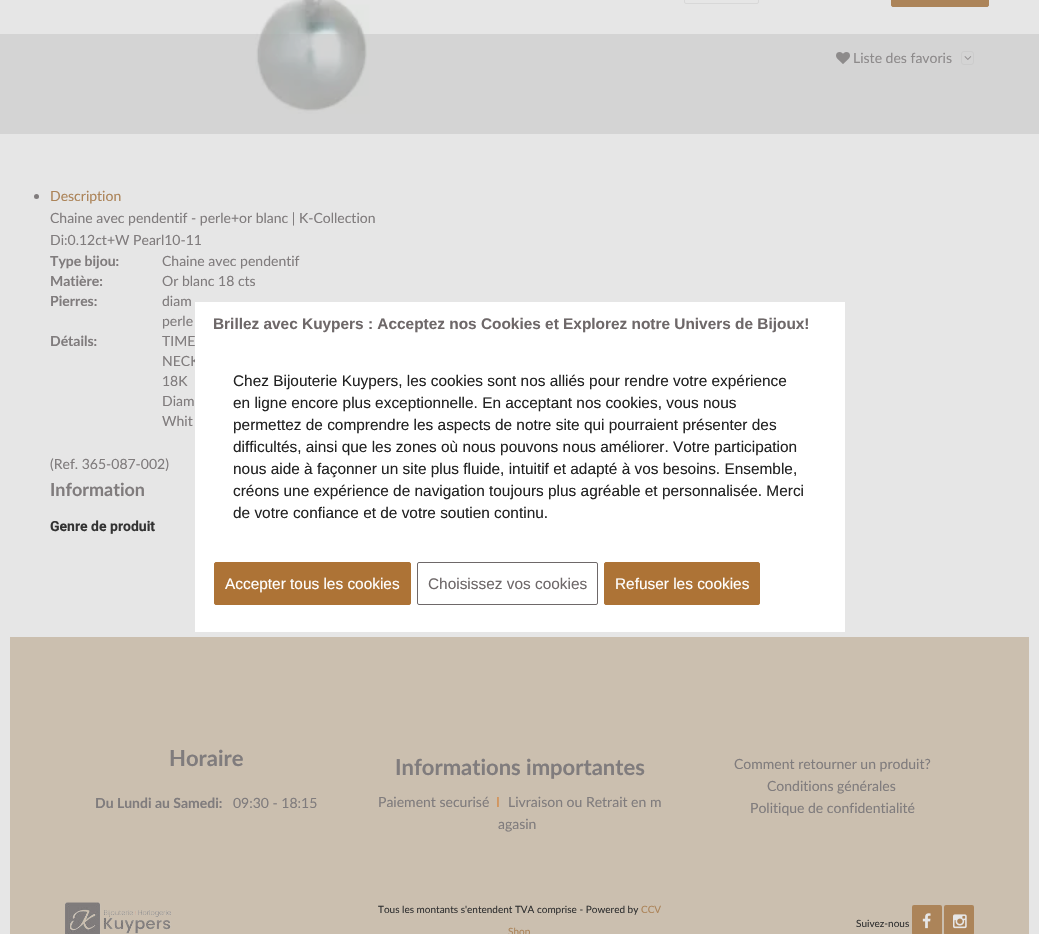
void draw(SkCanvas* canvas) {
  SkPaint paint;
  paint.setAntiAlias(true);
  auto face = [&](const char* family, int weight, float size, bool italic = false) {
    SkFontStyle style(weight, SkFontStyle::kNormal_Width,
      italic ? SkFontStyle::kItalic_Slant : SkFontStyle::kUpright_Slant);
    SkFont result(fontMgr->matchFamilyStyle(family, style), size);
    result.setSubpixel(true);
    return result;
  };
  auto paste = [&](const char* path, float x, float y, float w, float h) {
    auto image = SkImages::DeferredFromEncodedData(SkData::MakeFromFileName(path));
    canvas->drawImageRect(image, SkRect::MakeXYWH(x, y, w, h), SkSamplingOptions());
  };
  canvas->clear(0xffe6e6e6);
  paste("img/1.png", 255, 0, 115, 114);
  paint.setStroke(true);
  paint.setStrokeWidth(1);
  paint.setColor(0xffd8d8d8);
  canvas->drawRoundRect(SkRect::MakeXYWH(684.5f, -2.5f, 74, 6), 1.5f, 1.5f, paint);
  paint.setStroke(false);
  paint.setColor(0xffac8459);
  canvas->drawRoundRect(SkRect::MakeXYWH(891.5f, -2.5f, 97, 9), 1.5f, 1.5f, paint);
  paint.setStroke(true);
  canvas->drawRoundRect(SkRect::MakeXYWH(891.5f, -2.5f, 97, 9), 1.5f, 1.5f, paint);
  paste("img/2.png", 836, 52, 14, 12);
  paint.setColor(0xffdadada);
  canvas->drawRoundRect(SkRect::MakeXYWH(961.5f, 51.5f, 12, 13), 2.5f, 2.5f, paint);
  paste("img/3.png", 964, 56, 8, 4);
  paint.setStroke(false);
  paint.setColor(0xff807c7d);
  canvas->drawCircle(36.5f, 196.5f, 2.5f, paint);
  paint.setColor(0xffcbbfaf);
  canvas->drawRect(SkRect::MakeXYWH(10, 637, 1019, 297), paint);
  paste("img/4.png", 65, 902, 106, 32);
  paint.setColor(0xffac8459);
  canvas->drawRoundRect(SkRect::MakeXYWH(912, 905, 30, 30), 2, 2, paint);
  paste("img/5.png", 922, 913, 9, 16);
  canvas->drawRoundRect(SkRect::MakeXYWH(944, 905, 30, 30), 2, 2, paint);
  paste("img/6.png", 953, 914, 14, 15);
  auto f0 = face("Lato", 400, 14);
  paint.setColor(0xff807c7d);
  canvas->drawString("Liste des favoris", 853, 63, f0, paint);
  paint.setColor(0x4dababab);
  canvas->drawRect(SkRect::MakeXYWH(0, 34, 1039, 100), paint);
  paint.setColor(0xffac8459);
  canvas->drawString("Description", 50, 201, f0, paint);
  paint.setColor(0xff807c7d);
  canvas->drawString("Chaine avec pendentif - perle+or blanc | K-Collection", 50, 223, f0, paint);
  canvas->drawString("Di:0.12ct+W Pearl10-11", 50, 245, f0, paint);
  auto f1 = face("Lato", 700, 14);
  canvas->drawString("Type bijou:", 50, 266, f1, paint);
  canvas->drawString("Chaine avec pendentif", 162, 266, f0, paint);
  canvas->drawString("Matière:", 50, 286, f1, paint);
  canvas->drawString("Or blanc 18 cts", 162, 286, f0, paint);
  canvas->drawString("Pierres:", 50, 306, f1, paint);
  canvas->drawString("diam", 162, 306, f0, paint);
  canvas->drawString("perle", 162, 326, f0, paint);
  canvas->drawString("Détails:", 50, 346, f1, paint);
  {
    const struct { const char* s; float x, y; } items[] = {
      {"TIME", 162, 346},
      {"NECK", 162, 366},
      {"18K", 162, 386},
      {"Diam", 162, 406},
      {"Whit", 162, 426},
      {"(Ref. 365-087-002)", 50, 469},
    };
    for (auto [s, x, y] : items) {
      canvas->drawString(s, x, y, f0, paint);
    }
  }
  auto f2 = face("Lato", 700, 18);
  canvas->drawString("Information", 50, 496, f2, paint);
  auto f3 = face("Roboto", 700, 14);
  paint.setColor(0xff333333);
  canvas->drawString("Genre de produit", 50, 531, f3, paint);
  paint.setColor(0xffffffff);
  canvas->drawRect(SkRect::MakeXYWH(195, 302, 650, 330), paint);
  auto f4 = face("Liberation Sans", 700, 15.4f);
  paint.setColor(0xff6e6869);
  canvas->drawString("Brillez avec Kuypers : Acceptez nos Cookies et Explorez notre Univers de Bijoux!", 213, 329, f4, paint);
  auto f5 = face("Liberation Sans", 400, 15.4f);
  paint.setColor(0xff222222);
  {
    const struct { const char* s; float x, y; } items[] = {
      {"Chez Bijouterie Kuypers, les cookies sont nos alliés pour rendre votre expérience", 233, 386},
      {"en ligne encore plus exceptionnelle. En acceptant nos cookies, vous nous", 233, 408},
      {"permettez de comprendre les aspects de notre site qui pourraient présenter des", 233, 430},
      {"difficultés, ainsi que les zones où nous pouvons nous améliorer. Votre participation", 233, 452},
      {"nous aide à façonner un site plus fluide, intuitif et adapté à vos besoins. Ensemble,", 233, 474},
      {"créons une expérience de navigation toujours plus agréable et personnalisée. Merci", 233, 496},
      {"de votre confiance et de votre soutien continu.", 233, 518},
    };
    for (auto [s, x, y] : items) {
      canvas->drawString(s, x, y, f5, paint);
    }
  }
  paint.setColor(0xffad7336);
  canvas->drawRoundRect(SkRect::MakeXYWH(214.5f, 562.5f, 196, 42), 1.5f, 1.5f, paint);
  paint.setStroke(true);
  canvas->drawRoundRect(SkRect::MakeXYWH(214.5f, 562.5f, 196, 42), 1.5f, 1.5f, paint);
  paint.setStroke(false);
  paint.setColor(0xffffffff);
  canvas->drawString("Accepter tous les cookies", 225, 589, f5, paint);
  paint.setStroke(true);
  paint.setColor(0xff6e6869);
  canvas->drawRoundRect(SkRect::MakeXYWH(417.5f, 562.5f, 180, 42), 1.5f, 1.5f, paint);
  paint.setStroke(false);
  canvas->drawString("Choisissez vos cookies", 428, 589, f5, paint);
  paint.setColor(0xffad7336);
  canvas->drawRoundRect(SkRect::MakeXYWH(604.5f, 562.5f, 155, 42), 1.5f, 1.5f, paint);
  paint.setStroke(true);
  canvas->drawRoundRect(SkRect::MakeXYWH(604.5f, 562.5f, 155, 42), 1.5f, 1.5f, paint);
  paint.setStroke(false);
  paint.setColor(0xffffffff);
  canvas->drawString("Refuser les cookies", 615, 589, f5, paint);
  auto f6 = face("Lato", 700, 22);
  paint.setColor(0xff807c7d);
  canvas->drawString("Horaire", 169, 766, f6, paint);
  canvas->drawString("Du Lundi au Samedi:", 95, 808, f1, paint);
  canvas->drawString("09:30 - 18:15", 233, 808, f0, paint);
  canvas->drawString("Informations importantes", 395, 775, f6, paint);
  canvas->drawString("Paiement securisé", 378, 807, f0, paint);
  paint.setColor(0xffd48b4b);
  canvas->drawString("I", 496, 807, f0, paint);
  paint.setColor(0xff807c7d);
  {
    const struct { const char* s; float x, y; } items[] = {
      {"Livraison ou Retrait en m", 508, 807},
      {"agasin", 498, 829},
      {"Comment retourner un produit?", 734, 769},
      {"Conditions générales", 767, 791},
      {"Politique de confidentialité", 750, 813},
    };
    for (auto [s, x, y] : items) {
      canvas->drawString(s, x, y, f0, paint);
    }
  }
  auto f7 = face("Lato", 400, 10);
  paint.setColor(0xff333333);
  canvas->drawString("Tous les montants s'entendent TVA comprise - Powered by", 378, 913, f7, paint);
  paint.setColor(0xffac8459);
  canvas->drawString("CCV", 641, 913, f7, paint);
  canvas->drawString("Shop", 508, 935, f7, paint);
  paint.setColor(0xff333333);
  canvas->drawString("Suivez-nous", 856, 927, f7, paint);
}
